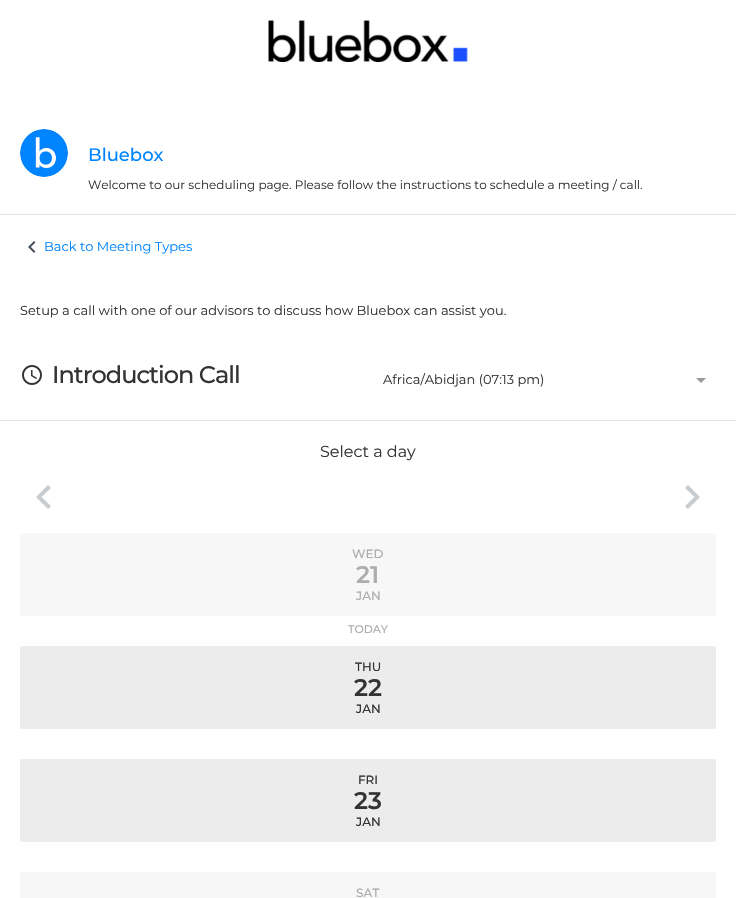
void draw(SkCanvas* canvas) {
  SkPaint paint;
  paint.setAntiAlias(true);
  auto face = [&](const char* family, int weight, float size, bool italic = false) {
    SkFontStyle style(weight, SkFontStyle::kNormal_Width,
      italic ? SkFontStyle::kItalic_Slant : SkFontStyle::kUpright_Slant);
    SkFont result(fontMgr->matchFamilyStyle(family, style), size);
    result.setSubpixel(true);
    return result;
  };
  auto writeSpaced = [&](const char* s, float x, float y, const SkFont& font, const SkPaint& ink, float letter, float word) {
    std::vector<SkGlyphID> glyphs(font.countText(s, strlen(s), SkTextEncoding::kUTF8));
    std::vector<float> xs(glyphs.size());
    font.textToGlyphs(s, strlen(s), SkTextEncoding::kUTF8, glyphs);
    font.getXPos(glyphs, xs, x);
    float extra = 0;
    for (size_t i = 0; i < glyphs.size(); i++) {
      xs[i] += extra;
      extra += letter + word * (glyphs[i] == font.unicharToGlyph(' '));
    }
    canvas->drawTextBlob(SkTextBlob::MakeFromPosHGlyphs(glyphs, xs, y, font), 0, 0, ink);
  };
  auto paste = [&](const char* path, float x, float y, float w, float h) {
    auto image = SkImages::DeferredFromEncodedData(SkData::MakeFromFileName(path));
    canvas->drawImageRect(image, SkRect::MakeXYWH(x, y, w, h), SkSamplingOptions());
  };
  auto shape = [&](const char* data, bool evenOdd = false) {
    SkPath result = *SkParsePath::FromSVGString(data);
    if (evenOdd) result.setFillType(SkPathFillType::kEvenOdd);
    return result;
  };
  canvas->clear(0xffffffff);
  paint.setColor(0xffdee3e9);
  canvas->drawRect(SkRect::MakeXYWH(0, 214, 736, 1), paint);
  paste("img/1.png", 268, 20, 200, 42);
  paste("img/2.png", 20, 129, 48, 48);
  paste("img/3.png", 28, 241, 8, 12);
  paste("img/4.png", 22, 365, 20, 20);
  paint.setColor(0xff999999);
  canvas->drawPath(shape("M696 378H706L701 383Z"), paint);
  paint.setColor(0xffdee3e9);
  canvas->drawRect(SkRect::MakeXYWH(0, 420, 736, 1), paint);
  paint.setColor(0xffc7ccd2);
  canvas->drawPath(shape("M51 506L48 509L36 497L48 485L51 488L41.5 497Z"), paint);
  canvas->drawPath(shape("M685 506L694.5 497L685 488L688 485L700 497L688 509Z"), paint);
  paint.setColor(0xfff7f7f7);
  canvas->drawRoundRect(SkRect::MakeXYWH(20, 533, 696, 83), 2, 2, paint);
  paint.setColor(0xffececec);
  canvas->drawRoundRect(SkRect::MakeXYWH(20, 646, 696, 83), 2, 2, paint);
  canvas->drawRoundRect(SkRect::MakeXYWH(20, 759, 696, 83), 2, 2, paint);
  paint.setColor(0xfff7f7f7);
  canvas->drawRoundRect(SkRect::MakeXYWH(20, 872, 696, 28), 2, 2, paint);
  auto f0 = face("Montserrat", 500, 18);
  paint.setColor(0xff0085ff);
  canvas->drawString("Bluebox", 88, 161, f0, paint);
  auto f1 = face("Montserrat", 400, 12);
  paint.setColor(0xff333333);
  canvas->drawString("Welcome to our scheduling page. Please follow the instructions to schedule a meeting / call.", 88, 189, f1, paint);
  auto f2 = face("Montserrat", 400, 13);
  paint.setColor(0xff0085ff);
  canvas->drawString("Back to Meeting Types", 44, 251, f2, paint);
  paint.setColor(0xff333333);
  canvas->drawString("Setup a call with one of our advisors to discuss how Bluebox can assist you.", 20, 315, f2, paint);
  auto f3 = face("Montserrat", 500, 24);
  writeSpaced("Introduction Call", 52, 383, f3, paint, -1, 0);
  canvas->drawString("Africa/Abidjan (07:13 pm)", 383, 384, f2, paint);
  auto f4 = face("Montserrat", 400, 16);
  canvas->drawString("Select a day", 320, 457, f4, paint);
  auto f5 = face("Montserrat", 500, 12);
  paint.setColor(0xffadadad);
  canvas->drawString("WED", 352, 558, f5, paint);
  auto f6 = face("Montserrat", 600, 24);
  canvas->drawString("21", 356, 583, f6, paint);
  canvas->drawString("JAN", 356, 600, f5, paint);
  auto f7 = face("Montserrat", 500, 11);
  canvas->drawString("TODAY", 348, 633, f7, paint);
  paint.setColor(0xff333333);
  canvas->drawString("THU", 355, 671, f5, paint);
  canvas->drawString("22", 354, 696, f6, paint);
  canvas->drawString("JAN", 356, 713, f5, paint);
  canvas->drawString("FRI", 358, 784, f5, paint);
  canvas->drawString("23", 354, 809, f6, paint);
  canvas->drawString("JAN", 356, 826, f5, paint);
  paint.setColor(0xffadadad);
  canvas->drawString("SAT", 356, 897, f5, paint);
}
